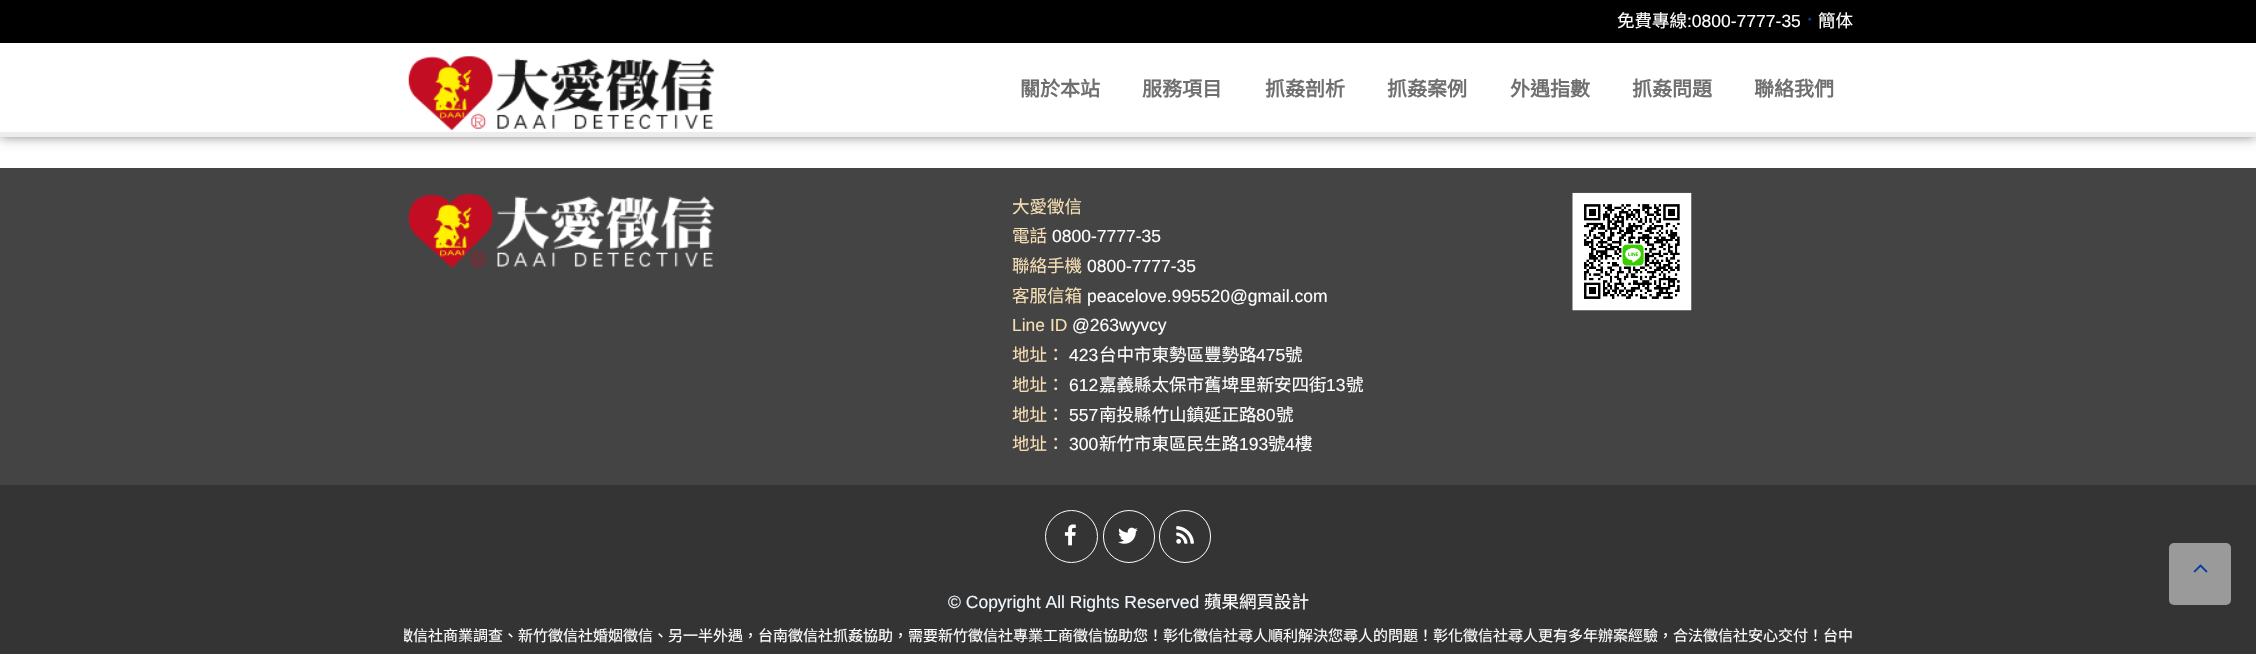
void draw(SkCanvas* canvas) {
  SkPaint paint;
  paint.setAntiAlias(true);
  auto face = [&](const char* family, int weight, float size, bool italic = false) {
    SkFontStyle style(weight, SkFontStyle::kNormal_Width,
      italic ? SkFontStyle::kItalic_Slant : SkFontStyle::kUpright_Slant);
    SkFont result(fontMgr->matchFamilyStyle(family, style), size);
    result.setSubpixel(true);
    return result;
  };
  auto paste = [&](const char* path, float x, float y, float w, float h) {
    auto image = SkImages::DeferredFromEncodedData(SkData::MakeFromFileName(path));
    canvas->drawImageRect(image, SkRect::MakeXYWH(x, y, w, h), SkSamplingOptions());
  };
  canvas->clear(0xffffffff);
  paint.setColor(0x8a000000);
  paint.setMaskFilter(SkMaskFilter::MakeBlur(kNormal_SkBlurStyle, 6));
  canvas->drawRect(SkRect::MakeXYWH(0, 0, 2256, 136), paint);
  paint.setMaskFilter(nullptr);
  {
    const struct { float x, y, w, h; SkColor color; } items[] = {
      {0, 43, 2256, 89, 0xffffffff},
      {0, 132, 2256, 5, 0xffececec},
      {0, 0, 2256, 43, 0xff000000},
    };
    for (auto [x, y, w, h, color] : items) {
      paint.setColor(color);
      canvas->drawRect(SkRect::MakeXYWH(x, y, w, h), paint);
    }
  }
  paste("img/1.png", 408, 56, 307, 75);
  paint.setColor(0xff444444);
  canvas->drawRect(SkRect::MakeXYWH(0, 168, 2256, 317), paint);
  paste("img/2.png", 408, 193, 307, 75);
  paste("img/3.png", 1572, 192, 120, 119);
  paint.setColor(0xff343434);
  canvas->drawRect(SkRect::MakeXYWH(0, 485, 2256, 169), paint);
  paint.setStroke(true);
  paint.setStrokeWidth(1);
  paint.setColor(0xffffffff);
  canvas->drawCircle(1071.5f, 536.5f, 26, paint);
  paste("img/4.png", 1064, 524, 12, 22);
  canvas->drawRoundRect(SkRect::MakeXYWH(1103.5f, 510.5f, 51, 52), 25.5f, 25.5f, paint);
  paste("img/5.png", 1118, 527, 20, 17);
  canvas->drawRoundRect(SkRect::MakeXYWH(1159.5f, 510.5f, 51, 52), 25.5f, 25.5f, paint);
  paste("img/6.png", 1176, 526, 18, 18);
  paint.setStroke(false);
  paint.setColor(0xff9a9a9a);
  canvas->drawRoundRect(SkRect::MakeXYWH(2169, 543, 62, 62), 5, 5, paint);
  paste("img/7.png", 2193, 564, 15, 9);
  auto f0 = face("Noto Sans CJK TC", 400, 17.5f);
  paint.setColor(0xffffffff);
  canvas->drawString("免費專線", 1617, 27, f0, paint);
  auto f1 = face("Liberation Sans", 400, 17.5f);
  canvas->drawString(":0800-7777-35", 1687, 27, f1, paint);
  paint.setColor(0xff093d9e);
  canvas->drawString("．", 1801, 26, f0, paint);
  paint.setColor(0xffffffff);
  canvas->drawString("簡体", 1818, 27, f0, paint);
  auto f2 = face("Noto Sans CJK TC", 700, 20);
  paint.setColor(0xff6f6f6f);
  {
    const struct { const char* s; float x, y; } items[] = {
      {"關於本站", 1020, 96},
      {"服務項目", 1142, 96},
      {"抓姦剖析", 1265, 96},
      {"抓姦案例", 1387, 96},
      {"外遇指數", 1510, 96},
      {"抓姦問題", 1632, 96},
      {"聯絡我們", 1754, 96},
    };
    for (auto [s, x, y] : items) {
      canvas->drawString(s, x, y, f2, paint);
    }
  }
  paint.setColor(0xfff5deb3);
  canvas->drawString("大愛徵信", 1012, 213, f0, paint);
  canvas->drawString("電話", 1012, 242, f0, paint);
  paint.setColor(0xffffffff);
  canvas->drawString("0800-7777-35", 1052, 242, f1, paint);
  paint.setColor(0xfff5deb3);
  canvas->drawString("聯絡手機", 1012, 272, f0, paint);
  paint.setColor(0xffffffff);
  canvas->drawString("0800-7777-35", 1087, 272, f1, paint);
  paint.setColor(0xfff5deb3);
  canvas->drawString("客服信箱", 1012, 302, f0, paint);
  paint.setColor(0xffffffff);
  canvas->drawString("peacelove.995520@gmail.com", 1087, 302, f1, paint);
  paint.setColor(0xfff5deb3);
  canvas->drawString("Line ID", 1012, 331, f1, paint);
  paint.setColor(0xffffffff);
  canvas->drawString("@263wyvcy", 1072, 331, f1, paint);
  paint.setColor(0xfff5deb3);
  canvas->drawString("地址：", 1012, 361, f0, paint);
  paint.setColor(0xffffffff);
  canvas->drawString("423", 1069, 361, f1, paint);
  canvas->drawString("台中市東勢區豐勢路", 1099, 361, f0, paint);
  canvas->drawString("475", 1256, 361, f1, paint);
  canvas->drawString("號", 1285, 361, f0, paint);
  paint.setColor(0xfff5deb3);
  canvas->drawString("地址：", 1012, 391, f0, paint);
  paint.setColor(0xffffffff);
  canvas->drawString("612", 1069, 391, f1, paint);
  canvas->drawString("嘉義縣太保市舊埤里新安四街", 1099, 391, f0, paint);
  canvas->drawString("13", 1326, 391, f1, paint);
  canvas->drawString("號", 1346, 391, f0, paint);
  paint.setColor(0xfff5deb3);
  canvas->drawString("地址：", 1012, 421, f0, paint);
  paint.setColor(0xffffffff);
  canvas->drawString("557", 1069, 421, f1, paint);
  canvas->drawString("南投縣竹山鎮延正路", 1099, 421, f0, paint);
  canvas->drawString("80", 1256, 421, f1, paint);
  canvas->drawString("號", 1276, 421, f0, paint);
  paint.setColor(0xfff5deb3);
  canvas->drawString("地址：", 1012, 450, f0, paint);
  paint.setColor(0xffffffff);
  canvas->drawString("300", 1069, 450, f1, paint);
  canvas->drawString("新竹市東區民生路", 1099, 450, f0, paint);
  canvas->drawString("193", 1239, 450, f1, paint);
  canvas->drawString("號", 1268, 450, f0, paint);
  canvas->drawString("4", 1285, 450, f1, paint);
  canvas->drawString("樓", 1295, 450, f0, paint);
  paint.setColor(0xfff0f8ff);
  canvas->drawString("© Copyright All Rights Reserved", 948, 608, f1, paint);
  paint.setColor(0xffffffff);
  canvas->drawString("蘋果網頁設計", 1204, 608, f0, paint);
  canvas->save();
  canvas->clipRect(SkRect::MakeXYWH(404, 624, 1450, 25));
  auto f3 = face("Noto Sans CJK TC", 400, 15);
  canvas->drawString("徵信社商業調查、新竹徵信社婚姻徵信、另一半外遇，台南徵信社抓姦協助，需要新竹徵信社專業工商徵信協助您！彰化徵信社尋人順利解決您尋人的問題！彰化徵信社尋人更有多年辦案經驗，合法徵信社安心交付！台中", 398, 641, f3, paint);
  canvas->restore();
}
